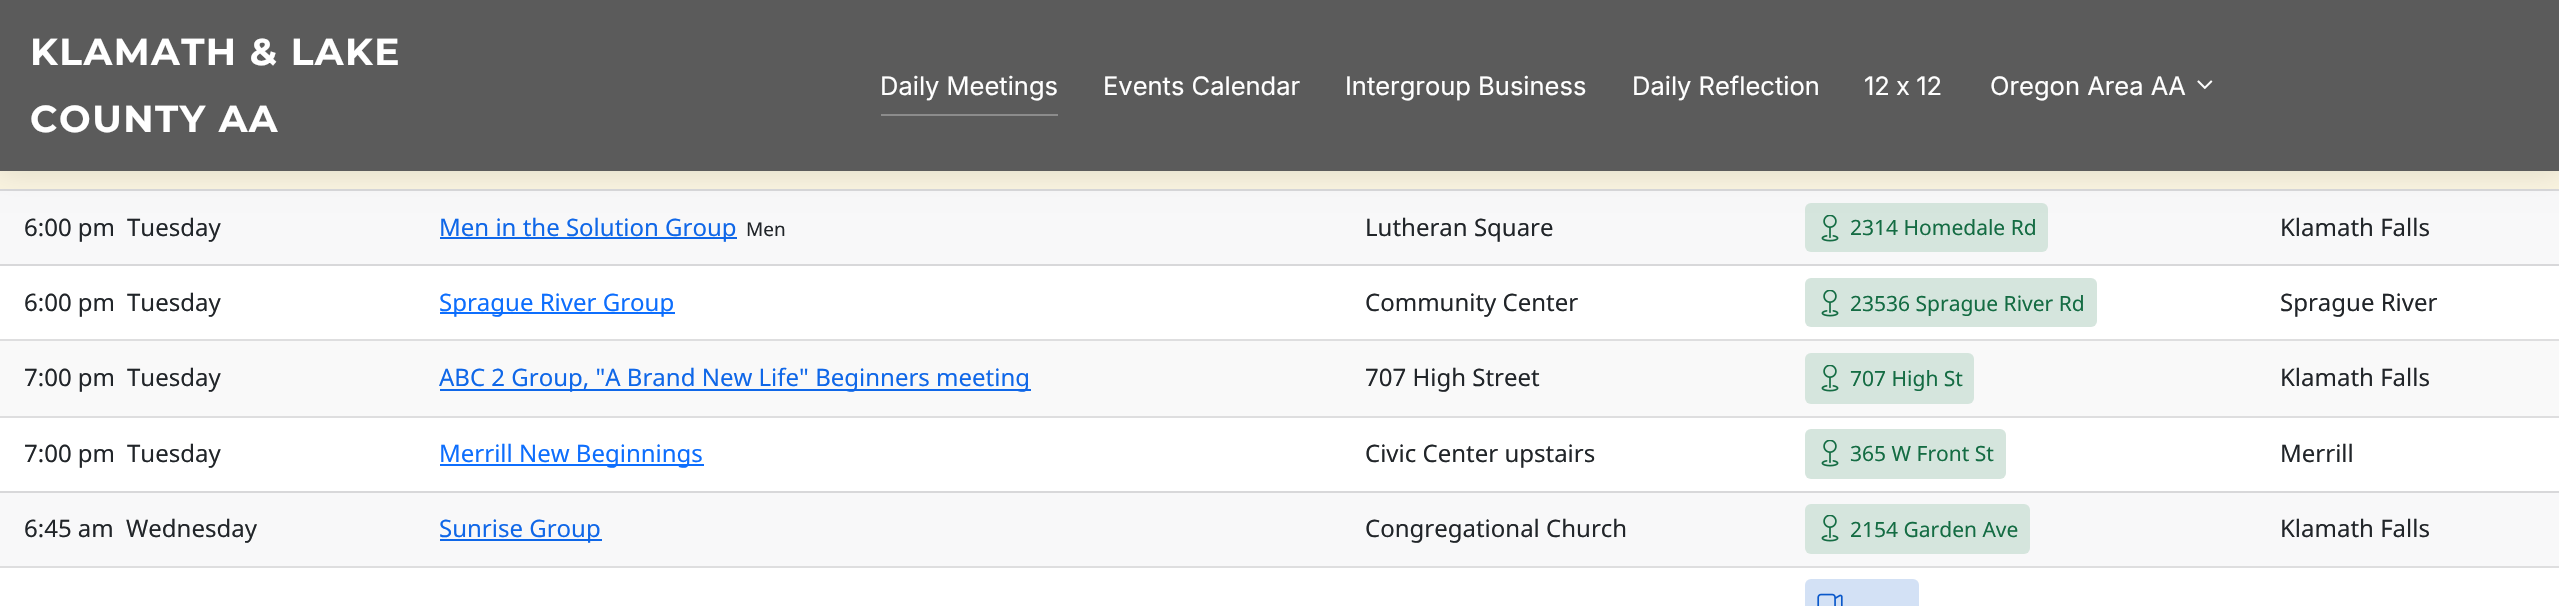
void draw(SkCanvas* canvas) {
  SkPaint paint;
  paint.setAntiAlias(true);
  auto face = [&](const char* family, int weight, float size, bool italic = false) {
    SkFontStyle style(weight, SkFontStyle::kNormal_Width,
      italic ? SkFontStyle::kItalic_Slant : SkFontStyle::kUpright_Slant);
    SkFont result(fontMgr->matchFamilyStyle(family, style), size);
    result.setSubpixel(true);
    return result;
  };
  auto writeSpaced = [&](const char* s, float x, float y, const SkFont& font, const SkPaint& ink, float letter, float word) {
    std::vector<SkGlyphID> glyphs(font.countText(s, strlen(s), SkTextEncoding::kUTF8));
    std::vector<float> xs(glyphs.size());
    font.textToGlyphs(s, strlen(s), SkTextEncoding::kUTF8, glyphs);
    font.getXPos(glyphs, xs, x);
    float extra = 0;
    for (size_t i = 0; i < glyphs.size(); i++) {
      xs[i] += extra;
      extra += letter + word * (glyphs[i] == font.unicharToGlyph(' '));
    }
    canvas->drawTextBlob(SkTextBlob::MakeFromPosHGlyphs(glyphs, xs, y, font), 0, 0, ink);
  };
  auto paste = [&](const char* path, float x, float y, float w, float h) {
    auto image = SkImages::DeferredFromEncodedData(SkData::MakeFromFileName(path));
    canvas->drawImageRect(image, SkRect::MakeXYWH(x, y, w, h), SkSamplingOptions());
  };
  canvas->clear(0xffffffff);
  {
    const struct { float x, y, w, h; SkColor color; } items[] = {
      {0, 493, 2559, 73, 0xfff8f8f9},
      {0, 191, 2559, 73, 0xfff8f8f9},
      {0, 171, 2559, 18, 0xfffaf4e0},
      {0, 189, 2559, 2, 0xffd8d8da},
    };
    for (auto [x, y, w, h, color] : items) {
      paint.setColor(color);
      canvas->drawRect(SkRect::MakeXYWH(x, y, w, h), paint);
    }
  }
  paint.setColor(0xffd5e5dd);
  canvas->drawRoundRect(SkRect::MakeXYWH(1805, 203, 243, 49), 6, 6, paint);
  paint.setColor(0x1a000000);
  paint.setMaskFilter(SkMaskFilter::MakeBlur(kNormal_SkBlurStyle, 13.5f));
  canvas->drawRect(SkRect::MakeXYWH(-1, -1, 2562, 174), paint);
  paint.setMaskFilter(nullptr);
  paint.setColor(0xff5b5b5b);
  canvas->drawRect(SkRect::MakeXYWH(0, 0, 2559, 171), paint);
  paint.setColor(0xff8c8c8c);
  canvas->drawRect(SkRect::MakeXYWH(881, 114, 177, 2), paint);
  paste("img/1.png", 2197, 80, 16, 10);
  paint.setColor(0xff0f67e8);
  canvas->drawRect(SkRect::MakeXYWH(440, 237, 297, 2), paint);
  paste("img/2.png", 1821, 215, 18, 27);
  paint.setColor(0xffd8d8da);
  canvas->drawRect(SkRect::MakeXYWH(0, 264, 2559, 2), paint);
  paint.setColor(0xff0d6efd);
  canvas->drawRect(SkRect::MakeXYWH(440, 312, 235, 2), paint);
  paint.setColor(0xffd5e5dd);
  canvas->drawRoundRect(SkRect::MakeXYWH(1805, 278, 292, 49), 6, 6, paint);
  paste("img/2.png", 1821, 290, 18, 27);
  {
    const struct { float x, y, w, h; SkColor color; } items[] = {
      {0, 339, 2559, 2, 0xffdededf},
      {0, 341, 2559, 75, 0xfff9f9f9},
      {440, 389, 591, 2, 0xff0f67e8},
    };
    for (auto [x, y, w, h, color] : items) {
      paint.setColor(color);
      canvas->drawRect(SkRect::MakeXYWH(x, y, w, h), paint);
    }
  }
  paint.setColor(0xffd5e5dd);
  canvas->drawRoundRect(SkRect::MakeXYWH(1805, 353, 169, 51), 6, 6, paint);
  paste("img/2.png", 1821, 365, 18, 27);
  paint.setColor(0xffdededf);
  canvas->drawRect(SkRect::MakeXYWH(0, 416, 2559, 2), paint);
  paint.setColor(0xff0d6efd);
  canvas->drawRect(SkRect::MakeXYWH(440, 464, 264, 2), paint);
  paint.setColor(0xffd5e5dd);
  canvas->drawRoundRect(SkRect::MakeXYWH(1805, 429, 201, 50), 6, 6, paint);
  paste("img/2.png", 1821, 440, 18, 27);
  paint.setColor(0xffd8d8da);
  canvas->drawRect(SkRect::MakeXYWH(0, 491, 2559, 2), paint);
  paint.setColor(0xff0f67e8);
  canvas->drawRect(SkRect::MakeXYWH(440, 539, 162, 2), paint);
  paint.setColor(0xffd5e5dd);
  canvas->drawRoundRect(SkRect::MakeXYWH(1805, 504, 225, 50), 6, 6, paint);
  paste("img/2.png", 1821, 515, 18, 27);
  paint.setColor(0xffdededf);
  canvas->drawRect(SkRect::MakeXYWH(0, 566, 2559, 2), paint);
  paint.setColor(0xffd3e1f5);
  canvas->drawRoundRect(SkRect::MakeXYWH(1805, 579, 114, 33), 6, 6, paint);
  paste("img/3.png", 1817, 593, 26, 13);
  auto f0 = face("Montserrat", 100, 37.5f);
  paint.setColor(0xffffffff);
  writeSpaced("KLAMATH & LAKE", 30, 65, f0, paint, 1.5f, 0);
  writeSpaced("COUNTY AA", 30, 132, f0, paint, 1.5f, 0);
  auto f1 = face("Inter", 400, 25.5f);
  {
    const struct { const char* s; float x, y; } items[] = {
      {"Daily Meetings", 880, 95},
      {"Events Calendar", 1103, 95},
      {"Intergroup Business", 1345, 95},
      {"Daily Reflection", 1632, 95},
    };
    for (auto [s, x, y] : items) {
      canvas->drawString(s, x, y, f1, paint);
    }
  }
  writeSpaced("12 x 12", 1864, 95, f1, paint, 0, -1);
  canvas->drawString("Oregon Area AA", 1990, 95, f1, paint);
  auto f2 = face("Noto Sans", 400, 24);
  paint.setColor(0xff212529);
  canvas->drawString("6:00 pm", 24, 236, f2, paint);
  canvas->drawString("Tuesday", 127, 236, f2, paint);
  paint.setColor(0xff0f67e8);
  canvas->drawString("Men in the Solution Group", 439, 236, f2, paint);
  auto f3 = face("Noto Sans", 400, 19);
  paint.setColor(0xff212529);
  canvas->drawString("Men", 746, 236, f3, paint);
  canvas->drawString("Lutheran Square", 1365, 236, f2, paint);
  auto f4 = face("Noto Sans", 400, 21);
  paint.setColor(0xff146c43);
  canvas->drawString("2314 Homedale Rd", 1850, 235, f4, paint);
  paint.setColor(0xff212529);
  {
    const struct { const char* s; float x, y; } items[] = {
      {"Klamath Falls", 2280, 236},
      {"6:00 pm", 24, 311},
      {"Tuesday", 127, 311},
    };
    for (auto [s, x, y] : items) {
      canvas->drawString(s, x, y, f2, paint);
    }
  }
  paint.setColor(0xff0d6efd);
  canvas->drawString("Sprague River Group", 439, 311, f2, paint);
  paint.setColor(0xff212529);
  canvas->drawString("Community Center", 1365, 311, f2, paint);
  paint.setColor(0xff146c43);
  canvas->drawString("23536 Sprague River Rd", 1850, 311, f4, paint);
  paint.setColor(0xff212529);
  {
    const struct { const char* s; float x, y; } items[] = {
      {"Sprague River", 2280, 311},
      {"7:00 pm", 24, 386},
      {"Tuesday", 127, 386},
    };
    for (auto [s, x, y] : items) {
      canvas->drawString(s, x, y, f2, paint);
    }
  }
  paint.setColor(0xff0f67e8);
  canvas->drawString("ABC 2 Group, \"A Brand New Life\" Beginners meeting", 439, 386, f2, paint);
  paint.setColor(0xff212529);
  canvas->drawString("707 High Street", 1365, 386, f2, paint);
  paint.setColor(0xff146c43);
  canvas->drawString("707 High St", 1850, 386, f4, paint);
  paint.setColor(0xff212529);
  {
    const struct { const char* s; float x, y; } items[] = {
      {"Klamath Falls", 2280, 386},
      {"7:00 pm", 24, 462},
      {"Tuesday", 127, 462},
    };
    for (auto [s, x, y] : items) {
      canvas->drawString(s, x, y, f2, paint);
    }
  }
  paint.setColor(0xff0d6efd);
  canvas->drawString("Merrill New Beginnings", 439, 462, f2, paint);
  paint.setColor(0xff212529);
  canvas->drawString("Civic Center upstairs", 1365, 462, f2, paint);
  paint.setColor(0xff146c43);
  canvas->drawString("365 W Front St", 1850, 461, f4, paint);
  paint.setColor(0xff212529);
  {
    const struct { const char* s; float x, y; } items[] = {
      {"Merrill", 2280, 462},
      {"6:45 am", 24, 537},
      {"Wednesday", 126, 537},
    };
    for (auto [s, x, y] : items) {
      canvas->drawString(s, x, y, f2, paint);
    }
  }
  paint.setColor(0xff0f67e8);
  canvas->drawString("Sunrise Group", 439, 537, f2, paint);
  paint.setColor(0xff212529);
  canvas->drawString("Congregational Church", 1365, 537, f2, paint);
  paint.setColor(0xff146c43);
  canvas->drawString("2154 Garden Ave", 1850, 537, f4, paint);
  paint.setColor(0xff212529);
  canvas->drawString("Klamath Falls", 2280, 537, f2, paint);
}
